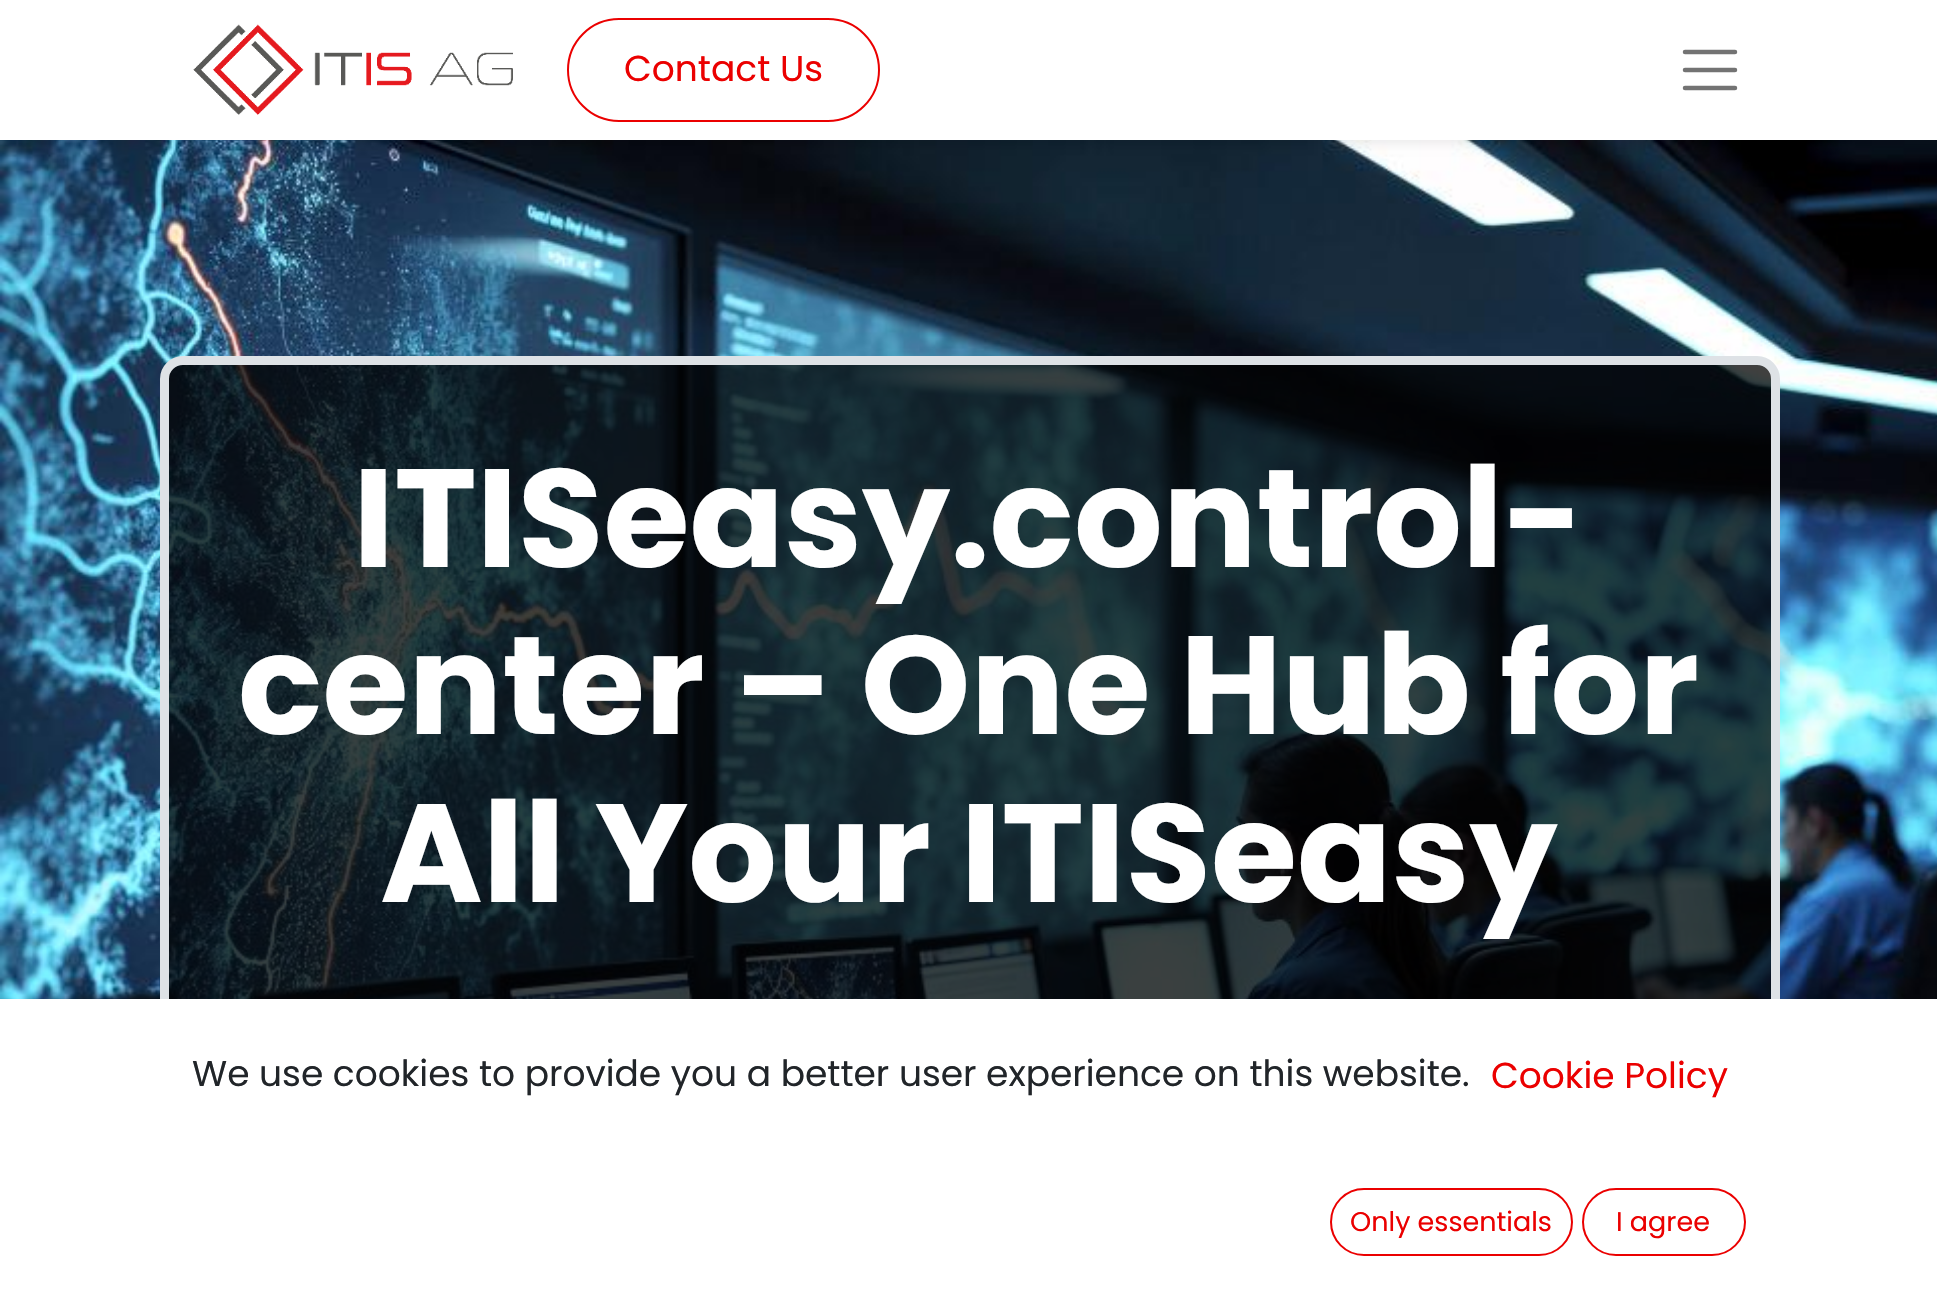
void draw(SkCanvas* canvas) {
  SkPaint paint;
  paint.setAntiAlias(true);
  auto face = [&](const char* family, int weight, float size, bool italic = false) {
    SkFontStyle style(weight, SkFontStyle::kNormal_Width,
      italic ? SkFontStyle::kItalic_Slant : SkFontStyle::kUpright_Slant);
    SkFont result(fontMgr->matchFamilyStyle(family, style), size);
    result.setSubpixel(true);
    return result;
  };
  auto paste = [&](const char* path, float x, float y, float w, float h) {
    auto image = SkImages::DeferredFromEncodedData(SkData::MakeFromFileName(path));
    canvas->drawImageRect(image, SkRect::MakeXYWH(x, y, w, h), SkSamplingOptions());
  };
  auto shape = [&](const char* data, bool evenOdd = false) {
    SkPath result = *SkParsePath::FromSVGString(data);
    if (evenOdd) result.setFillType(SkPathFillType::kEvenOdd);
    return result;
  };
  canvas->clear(0xffffffff);
  paste("img/2.png", 0, 140, 1937, 859);
  paint.setColor(0x12000000);
  paint.setMaskFilter(SkMaskFilter::MakeBlur(kNormal_SkBlurStyle, 4.5f));
  canvas->drawRect(SkRect::MakeXYWH(0, 5, 1937, 139), paint);
  paint.setMaskFilter(nullptr);
  paint.setColor(0xffffffff);
  canvas->drawRect(SkRect::MakeXYWH(0, 0, 1937, 140), paint);
  paste("img/1.png", 193, 24, 320, 91);
  paint.setStroke(true);
  paint.setStrokeWidth(2);
  paint.setColor(0xffeb0000);
  canvas->drawRoundRect(SkRect::MakeXYWH(568, 19, 311, 102), 51, 51, paint);
  paint.setStrokeWidth(4.5f);
  paint.setStrokeCap(SkPaint::kRound_Cap);
  paint.setColor(0xff737373);
  canvas->drawPath(shape("M1685 52H1735M1685 70H1735M1685 88H1735"), paint);
  paint.setStroke(false);
  paint.setColor(0xbf000000);
  canvas->drawRoundRect(SkRect::MakeXYWH(164.5f, 360.5f, 1611, 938), 18.5f, 18.5f, paint);
  paint.setStroke(true);
  paint.setStrokeWidth(9);
  paint.setStrokeCap(SkPaint::kButt_Cap);
  paint.setColor(0xffdee2e6);
  canvas->drawRoundRect(SkRect::MakeXYWH(164.5f, 360.5f, 1611, 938), 18.5f, 18.5f, paint);
  paint.setStroke(false);
  paint.setColor(0xffffffff);
  canvas->drawRect(SkRect::MakeXYWH(160, 999, 1620, 291), paint);
  paint.setStroke(true);
  paint.setStrokeWidth(2);
  paint.setColor(0xffeb0000);
  canvas->drawRoundRect(SkRect::MakeXYWH(1331, 1189, 241, 66), 33, 33, paint);
  canvas->drawRoundRect(SkRect::MakeXYWH(1583, 1189, 162, 66), 33, 33, paint);
  auto f0 = face("Poppins", 400, 36);
  paint.setStroke(false);
  canvas->drawString("Contact Us", 624, 81, f0, paint);
  auto f1 = face("Poppins", 700, 139.5f);
  paint.setColor(0xffffffff);
  {
    const struct { const char* s; float x, y; } items[] = {
      {"ITISeasy.control-", 353, 567},
      {"center – One Hub for", 238, 734},
      {"All Your ITISeasy", 380, 902},
    };
    for (auto [s, x, y] : items) {
      canvas->drawString(s, x, y, f1, paint);
    }
  }
  paint.setColor(0xff212529);
  canvas->drawString("We use cookies to provide you a better user experience on this website.", 192, 1086, f0, paint);
  paint.setColor(0xffeb0000);
  canvas->drawString("Cookie Policy", 1491, 1088, f0, paint);
  auto f2 = face("Poppins", 400, 27);
  canvas->drawString("Only essentials", 1350, 1231, f2, paint);
  canvas->drawString("I agree", 1616, 1231, f2, paint);
}
